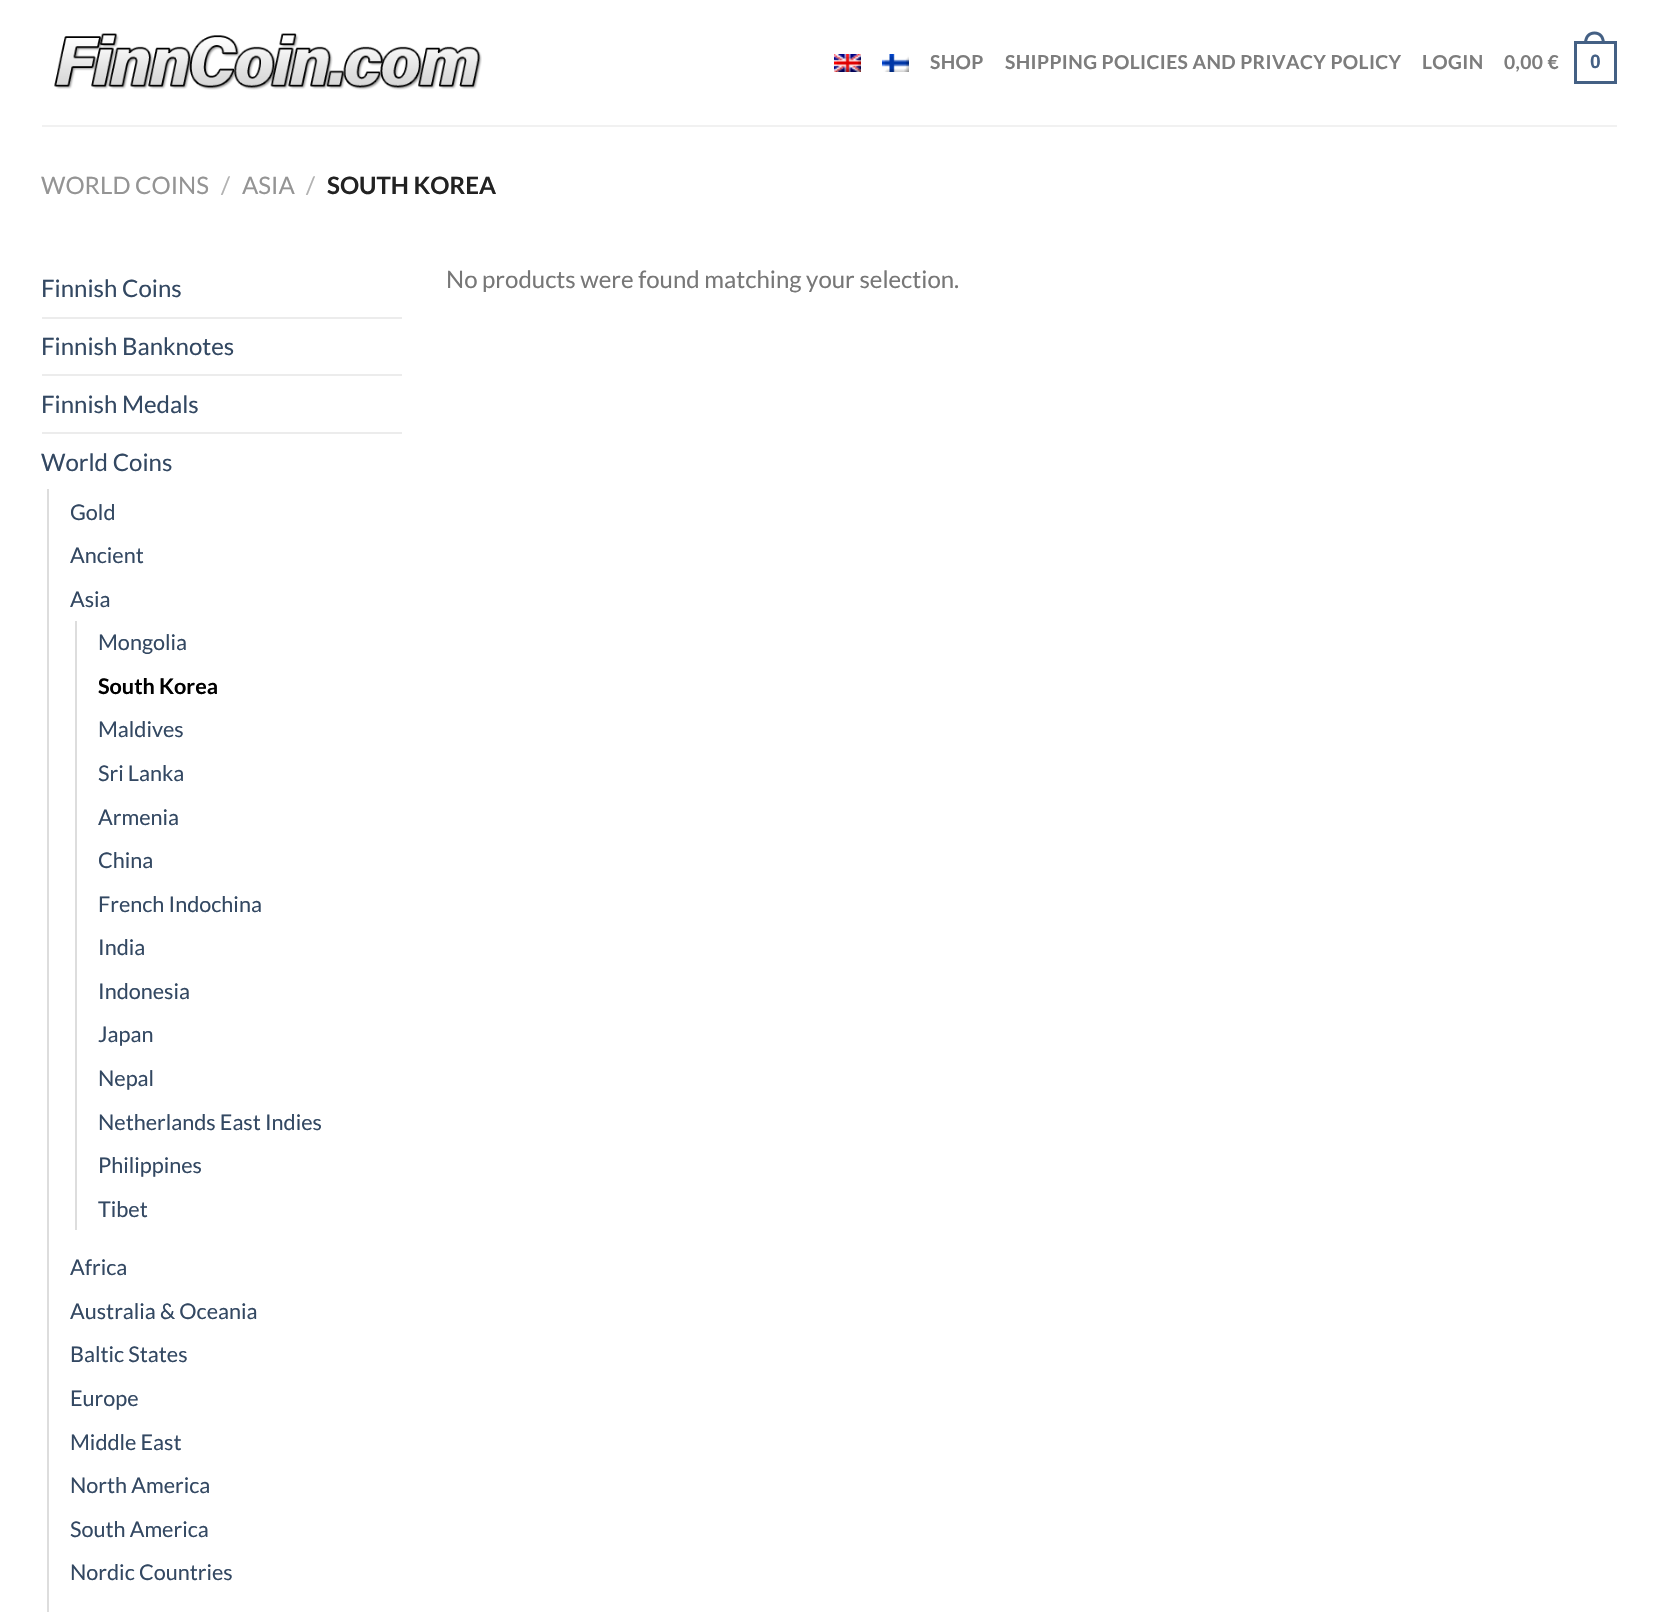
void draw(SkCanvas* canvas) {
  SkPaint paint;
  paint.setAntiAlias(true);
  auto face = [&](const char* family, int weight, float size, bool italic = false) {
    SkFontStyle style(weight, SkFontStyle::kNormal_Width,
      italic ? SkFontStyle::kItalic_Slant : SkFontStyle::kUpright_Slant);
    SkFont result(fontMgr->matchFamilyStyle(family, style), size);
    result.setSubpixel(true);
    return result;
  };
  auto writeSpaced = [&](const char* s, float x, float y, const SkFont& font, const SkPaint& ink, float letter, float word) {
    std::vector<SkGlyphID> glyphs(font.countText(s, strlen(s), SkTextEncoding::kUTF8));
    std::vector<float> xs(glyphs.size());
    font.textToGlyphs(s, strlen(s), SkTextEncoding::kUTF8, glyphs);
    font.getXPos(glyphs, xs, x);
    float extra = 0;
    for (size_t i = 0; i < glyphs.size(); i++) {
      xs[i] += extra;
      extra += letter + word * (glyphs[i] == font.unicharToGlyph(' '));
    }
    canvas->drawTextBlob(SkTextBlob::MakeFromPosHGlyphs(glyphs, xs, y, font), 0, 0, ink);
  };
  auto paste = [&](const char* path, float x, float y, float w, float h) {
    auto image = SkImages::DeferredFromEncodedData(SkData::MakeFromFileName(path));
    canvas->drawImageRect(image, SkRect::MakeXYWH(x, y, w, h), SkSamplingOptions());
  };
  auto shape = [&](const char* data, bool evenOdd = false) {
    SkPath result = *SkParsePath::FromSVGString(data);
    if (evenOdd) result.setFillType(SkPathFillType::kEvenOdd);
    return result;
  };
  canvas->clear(0xffffffff);
  paste("img/1.png", 54, 33, 428, 57);
  paste("img/2.png", 834, 54, 27, 18);
  paste("img/3.png", 882, 54, 27, 18);
  paint.setStroke(true);
  paint.setStrokeWidth(3);
  paint.setColor(0xff446084);
  canvas->drawRect(SkRect::MakeXYWH(1575.5f, 42.5f, 40, 40), paint);
  paint.setStroke(false);
  canvas->drawPath(shape("M1594.5 31.5C1601.5 31.5 1605 37 1605 43.5H1584C1584 37 1587.5 31.5 1594.5 31.5ZM1594.5 34.5C1600 34.5 1602 39 1602 43.5H1587C1587 39 1589 34.5 1594.5 34.5Z", true), paint);
  {
    const struct { float x, y, w, h; SkColor color; } items[] = {
      {42, 125, 1575, 2, 0xfff1f1f1},
      {42, 317, 360, 2, 0xffececec},
      {42, 374, 360, 2, 0xffececec},
      {42, 432, 360, 2, 0xffececec},
      {47, 489, 2, 1123, 0xffdddddd},
      {75, 621, 2, 609, 0xffdddddd},
    };
    for (auto [x, y, w, h, color] : items) {
      paint.setColor(color);
      canvas->drawRect(SkRect::MakeXYWH(x, y, w, h), paint);
    }
  }
  auto f0 = face("Lato", 700, 19.2f);
  paint.setColor(0xff7d7d7d);
  {
    const struct { const char* s; float x, y; } items[] = {
      {"SHOP", 930, 69},
      {"SHIPPING POLICIES AND PRIVACY POLICY", 1005, 69},
      {"LOGIN", 1422, 69},
      {"0,00 €", 1504, 69},
    };
    for (auto [s, x, y] : items) {
      writeSpaced(s, x, y, f0, paint, 0.4f, 0);
    }
  }
  auto f1 = face("Liberation Sans", 700, 19.2f);
  paint.setColor(0xff446084);
  writeSpaced("0", 1590, 68, f1, paint, 0.4f, 0);
  auto f2 = face("Lato", 400, 24);
  paint.setColor(0xff949494);
  canvas->drawString("WORLD COINS", 41, 194, f2, paint);
  paint.setColor(0xffb2b2b2);
  canvas->drawString("/", 221, 194, f2, paint);
  paint.setColor(0xff949494);
  canvas->drawString("ASIA", 242, 194, f2, paint);
  paint.setColor(0xffb2b2b2);
  canvas->drawString("/", 306, 194, f2, paint);
  auto f3 = face("Lato", 700, 24);
  paint.setColor(0xff222222);
  canvas->drawString("SOUTH KOREA", 327, 194, f3, paint);
  paint.setColor(0xff334862);
  {
    const struct { const char* s; float x, y; } items[] = {
      {"Finnish Coins", 41, 297},
      {"Finnish Banknotes", 41, 355},
      {"Finnish Medals", 41, 413},
      {"World Coins", 41, 471},
    };
    for (auto [s, x, y] : items) {
      canvas->drawString(s, x, y, f2, paint);
    }
  }
  auto f4 = face("Lato", 400, 21.6f);
  {
    const struct { const char* s; float x, y; } items[] = {
      {"Gold", 70, 520},
      {"Ancient", 70, 563},
      {"Asia", 70, 607},
      {"Mongolia", 98, 650},
    };
    for (auto [s, x, y] : items) {
      canvas->drawString(s, x, y, f4, paint);
    }
  }
  auto f5 = face("Lato", 700, 21.6f);
  paint.setColor(0xff000000);
  canvas->drawString("South Korea", 98, 694, f5, paint);
  paint.setColor(0xff334862);
  {
    const struct { const char* s; float x, y; } items[] = {
      {"Maldives", 98, 737},
      {"Sri Lanka", 98, 781},
      {"Armenia", 98, 825},
      {"China", 98, 868},
      {"French Indochina", 98, 912},
      {"India", 98, 955},
      {"Indonesia", 98, 999},
      {"Japan", 98, 1042},
      {"Nepal", 98, 1086},
      {"Netherlands East Indies", 98, 1130},
      {"Philippines", 98, 1173},
      {"Tibet", 98, 1217},
      {"Africa", 70, 1275},
      {"Australia & Oceania", 70, 1319},
      {"Baltic States", 70, 1362},
      {"Europe", 70, 1406},
      {"Middle East", 70, 1450},
      {"North America", 70, 1493},
      {"South America", 70, 1537},
      {"Nordic Countries", 70, 1580},
    };
    for (auto [s, x, y] : items) {
      canvas->drawString(s, x, y, f4, paint);
    }
  }
  paint.setColor(0xff777777);
  canvas->drawString("No products were found matching your selection.", 446, 288, f2, paint);
}
